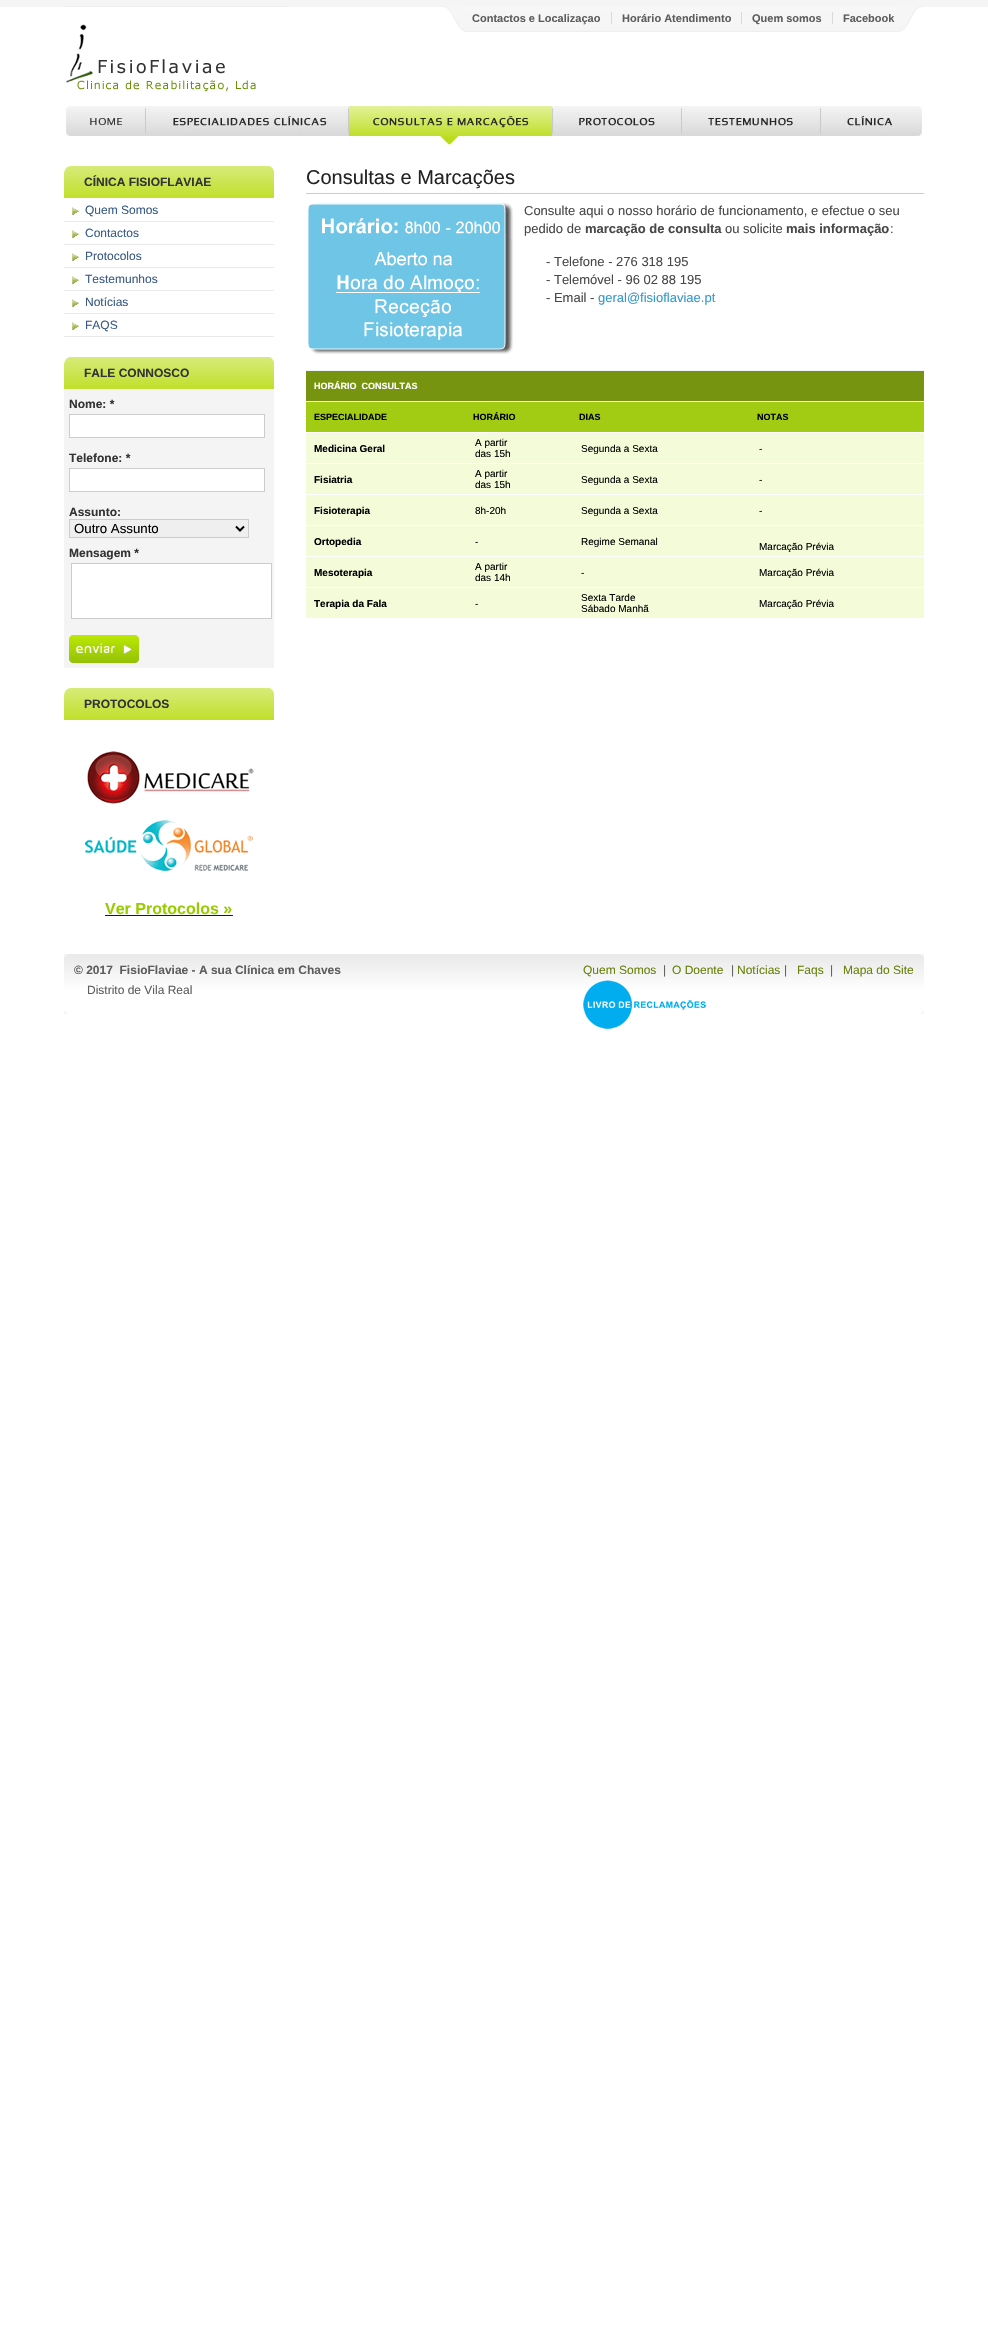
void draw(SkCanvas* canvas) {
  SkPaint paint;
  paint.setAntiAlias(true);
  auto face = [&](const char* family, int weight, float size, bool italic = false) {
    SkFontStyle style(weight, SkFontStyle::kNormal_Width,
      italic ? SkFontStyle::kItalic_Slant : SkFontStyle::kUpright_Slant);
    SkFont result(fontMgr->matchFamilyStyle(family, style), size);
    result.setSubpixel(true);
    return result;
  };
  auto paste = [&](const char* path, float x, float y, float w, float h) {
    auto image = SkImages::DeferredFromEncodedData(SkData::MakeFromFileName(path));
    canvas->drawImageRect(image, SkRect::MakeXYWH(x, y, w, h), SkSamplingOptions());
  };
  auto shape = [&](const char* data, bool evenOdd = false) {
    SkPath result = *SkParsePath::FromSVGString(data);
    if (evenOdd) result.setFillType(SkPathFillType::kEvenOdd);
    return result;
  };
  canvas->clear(0xffffffff);
  paint.setColor(0xfff5f5f5);
  canvas->drawRect(SkRect::MakeXYWH(0, 0, 988, 7), paint);
  paste("img/1.png", 64, 6, 224, 86);
  paste("img/2.png", 465, 6, 459, 26);
  paste("img/3.png", 442, 6, 23, 26);
  {
    const struct { float x, y, w, h; SkColor color; } items[] = {
      {611, 12, 1, 12, 0xffdadada},
      {741, 12, 1, 12, 0xffdadada},
      {832, 12, 1, 12, 0xffdadada},
    };
    for (auto [x, y, w, h, color] : items) {
      paint.setColor(color);
      canvas->drawRect(SkRect::MakeXYWH(x, y, w, h), paint);
    }
  }
  paste("img/4.png", 65, 106, 857, 30);
  paste("img/5.png", 349, 105, 203, 40);
  paste("img/6.png", 64, 166, 210, 32);
  paint.setColor(0xffeaeaea);
  canvas->drawRect(SkRect::MakeXYWH(64, 221, 210, 1), paint);
  paste("img/7.png", 72, 207, 7, 9);
  canvas->drawRect(SkRect::MakeXYWH(64, 244, 210, 1), paint);
  paste("img/7.png", 72, 230, 7, 9);
  canvas->drawRect(SkRect::MakeXYWH(64, 267, 210, 1), paint);
  paste("img/7.png", 72, 253, 7, 9);
  canvas->drawRect(SkRect::MakeXYWH(64, 290, 210, 1), paint);
  paste("img/7.png", 72, 276, 7, 9);
  canvas->drawRect(SkRect::MakeXYWH(64, 313, 210, 1), paint);
  paste("img/7.png", 72, 299, 7, 9);
  canvas->drawRect(SkRect::MakeXYWH(64, 336, 210, 1), paint);
  paste("img/7.png", 72, 322, 7, 9);
  paste("img/6.png", 64, 357, 210, 32);
  paint.setColor(0xfff4f4f4);
  canvas->drawRect(SkRect::MakeXYWH(64, 389, 210, 279), paint);
  paint.setColor(0xffffffff);
  canvas->drawRect(SkRect::MakeXYWH(69.5f, 414.5f, 195, 23), paint);
  paint.setStroke(true);
  paint.setStrokeWidth(1);
  paint.setColor(0xffcccccc);
  canvas->drawRect(SkRect::MakeXYWH(69.5f, 414.5f, 195, 23), paint);
  paint.setStroke(false);
  paint.setColor(0xffffffff);
  canvas->drawRect(SkRect::MakeXYWH(69.5f, 468.5f, 195, 23), paint);
  paint.setStroke(true);
  paint.setColor(0xffcccccc);
  canvas->drawRect(SkRect::MakeXYWH(69.5f, 468.5f, 195, 23), paint);
  paint.setStroke(false);
  paint.setColor(0xffefefef);
  canvas->drawRect(SkRect::MakeXYWH(69.5f, 519.5f, 179, 18), paint);
  paint.setStroke(true);
  paint.setColor(0xffcccccc);
  canvas->drawRect(SkRect::MakeXYWH(69.5f, 519.5f, 179, 18), paint);
  paint.setStrokeWidth(2);
  paint.setColor(0xff000000);
  canvas->drawPath(shape("M236 526.5L240 530.5L244 526.5"), paint);
  paint.setStroke(false);
  paint.setColor(0xffffffff);
  canvas->drawRect(SkRect::MakeXYWH(71.5f, 563.5f, 200, 55), paint);
  paint.setStroke(true);
  paint.setStrokeWidth(1);
  paint.setColor(0xffcccccc);
  canvas->drawRect(SkRect::MakeXYWH(71.5f, 563.5f, 200, 55), paint);
  paste("img/8.png", 69, 635, 70, 28);
  paste("img/6.png", 64, 688, 210, 32);
  paste("img/9.png", 85, 751, 169, 120);
  paint.setStroke(false);
  paint.setColor(0xff0000ee);
  canvas->drawRect(SkRect::MakeXYWH(105, 915, 128, 1), paint);
  paint.setColor(0xffcccccc);
  canvas->drawRect(SkRect::MakeXYWH(306, 193, 618, 1), paint);
  paste("img/10.png", 308, 202, 206, 153);
  {
    const struct { float x, y, w, h; SkColor color; } items[] = {
      {306, 370, 618, 1, 0xffeff5fa},
      {306, 371, 618, 30, 0xff769410},
      {306, 402, 618, 30, 0xffa2cb14},
      {306, 433, 618, 30, 0xfff3fbd9},
      {306, 464, 618, 30, 0xfff3fbd9},
      {306, 495, 618, 30, 0xfff3fbd9},
      {306, 526, 618, 30, 0xfff3fbd9},
      {306, 557, 618, 30, 0xfff3fbd9},
      {306, 588, 618, 30, 0xfff3fbd9},
    };
    for (auto [x, y, w, h, color] : items) {
      paint.setColor(color);
      canvas->drawRect(SkRect::MakeXYWH(x, y, w, h), paint);
    }
  }
  paste("img/11.png", 64, 954, 860, 60);
  paste("img/12.png", 583, 980, 123, 49);
  auto f0 = face("Liberation Sans", 700, 11);
  paint.setColor(0xff5d5d5d);
  {
    const struct { const char* s; float x, y; } items[] = {
      {"Contactos e Localizaçao", 472, 22},
      {"Horário Atendimento", 622, 22},
      {"Quem somos", 752, 22},
      {"Facebook", 843, 22},
    };
    for (auto [s, x, y] : items) {
      canvas->drawString(s, x, y, f0, paint);
    }
  }
  auto f1 = face("Liberation Sans", 700, 12);
  paint.setColor(0xff333333);
  canvas->drawString("CÍNICA FISIOFLAVIAE", 84, 186, f1, paint);
  auto f2 = face("Liberation Sans", 400, 12);
  paint.setColor(0xff395b86);
  {
    const struct { const char* s; float x, y; } items[] = {
      {"Quem Somos", 85, 214},
      {"Contactos", 85, 237},
      {"Protocolos", 85, 260},
      {"Testemunhos", 85, 283},
      {"Notícias", 85, 306},
      {"FAQS", 85, 329},
    };
    for (auto [s, x, y] : items) {
      canvas->drawString(s, x, y, f2, paint);
    }
  }
  paint.setColor(0xff333333);
  {
    const struct { const char* s; float x, y; } items[] = {
      {"FALE CONNOSCO", 84, 377},
      {"Nome: *", 69, 408},
      {"Telefone: *", 69, 462},
      {"Assunto:", 69, 516},
    };
    for (auto [s, x, y] : items) {
      canvas->drawString(s, x, y, f1, paint);
    }
  }
  auto f3 = face("Liberation Sans", 400, 13.25f);
  paint.setColor(0xff000000);
  canvas->drawString("Outro Assunto", 74, 533, f3, paint);
  paint.setColor(0xff333333);
  canvas->drawString("Mensagem *", 69, 557, f1, paint);
  canvas->drawString("PROTOCOLOS", 84, 708, f1, paint);
  auto f4 = face("Liberation Sans", 700, 16);
  paint.setColor(0xff99cc00);
  canvas->drawString("Ver Protocolos »", 105, 914, f4, paint);
  auto f5 = face("Liberation Sans", 400, 20);
  paint.setColor(0xff232323);
  canvas->drawString("Consultas e Marcações", 306, 184, f5, paint);
  auto f6 = face("Liberation Sans", 400, 13);
  paint.setColor(0xff484848);
  canvas->drawString("Consulte aqui o nosso horário de funcionamento, e efectue o seu", 524, 215, f6, paint);
  canvas->drawString("pedido de", 524, 233, f6, paint);
  auto f7 = face("Liberation Sans", 700, 13);
  canvas->drawString("marcação de consulta", 585, 233, f7, paint);
  canvas->drawString("ou solicite", 725, 233, f6, paint);
  canvas->drawString("mais informação", 786, 233, f7, paint);
  {
    const struct { const char* s; float x, y; } items[] = {
      {":", 890, 233},
      {"- Telefone - 276 318 195", 546, 266},
      {"- Telemóvel - 96 02 88 195", 546, 284},
      {"- Email -", 546, 302},
    };
    for (auto [s, x, y] : items) {
      canvas->drawString(s, x, y, f6, paint);
    }
  }
  paint.setColor(0xff3399cc);
  canvas->drawString("geral@fisioflaviae.pt", 598, 302, f6, paint);
  auto f8 = face("Liberation Sans", 700, 9);
  paint.setColor(0xffffffff);
  canvas->drawString("HORÁRIO  CONSULTAS", 314, 389, f8, paint);
  paint.setColor(0xff000000);
  {
    const struct { const char* s; float x, y; } items[] = {
      {"ESPECIALIDADE", 314, 420},
      {"HORÁRIO", 473, 420},
      {"DIAS", 579, 420},
      {"NOTAS", 757, 420},
    };
    for (auto [s, x, y] : items) {
      canvas->drawString(s, x, y, f8, paint);
    }
  }
  auto f9 = face("Liberation Sans", 700, 10);
  canvas->drawString("Medicina Geral", 314, 452, f9, paint);
  auto f10 = face("Liberation Sans", 400, 10);
  {
    const struct { const char* s; float x, y; } items[] = {
      {"A partir", 475, 446},
      {"das 15h", 475, 457},
      {"Segunda a Sexta", 581, 452},
      {"-", 759, 452},
    };
    for (auto [s, x, y] : items) {
      canvas->drawString(s, x, y, f10, paint);
    }
  }
  canvas->drawString("Fisiatria", 314, 483, f9, paint);
  {
    const struct { const char* s; float x, y; } items[] = {
      {"A partir", 475, 477},
      {"das 15h", 475, 488},
      {"Segunda a Sexta", 581, 483},
      {"-", 759, 483},
    };
    for (auto [s, x, y] : items) {
      canvas->drawString(s, x, y, f10, paint);
    }
  }
  canvas->drawString("Fisioterapia", 314, 514, f9, paint);
  {
    const struct { const char* s; float x, y; } items[] = {
      {"8h-20h", 475, 514},
      {"Segunda a Sexta", 581, 514},
      {"-", 759, 514},
    };
    for (auto [s, x, y] : items) {
      canvas->drawString(s, x, y, f10, paint);
    }
  }
  canvas->drawString("Ortopedia", 314, 545, f9, paint);
  {
    const struct { const char* s; float x, y; } items[] = {
      {"-", 475, 545},
      {"Regime Semanal", 581, 545},
      {"Marcação Prévia", 759, 550},
    };
    for (auto [s, x, y] : items) {
      canvas->drawString(s, x, y, f10, paint);
    }
  }
  canvas->drawString("Mesoterapia", 314, 576, f9, paint);
  {
    const struct { const char* s; float x, y; } items[] = {
      {"A partir", 475, 570},
      {"das 14h", 475, 581},
      {"-", 581, 576},
      {"Marcação Prévia", 759, 576},
    };
    for (auto [s, x, y] : items) {
      canvas->drawString(s, x, y, f10, paint);
    }
  }
  canvas->drawString("Terapia da Fala", 314, 607, f9, paint);
  {
    const struct { const char* s; float x, y; } items[] = {
      {"-", 475, 607},
      {"Sexta Tarde", 581, 601},
      {"Sábado Manhã", 581, 612},
      {"Marcação Prévia", 759, 607},
    };
    for (auto [s, x, y] : items) {
      canvas->drawString(s, x, y, f10, paint);
    }
  }
  paint.setColor(0xff5d5d5d);
  canvas->drawString("© 2017  FisioFlaviae - A sua Clínica em Chaves", 74, 974, f1, paint);
  canvas->drawString("Distrito de Vila Real", 87, 994, f2, paint);
  paint.setColor(0xff67820b);
  canvas->drawString("Quem Somos", 583, 974, f2, paint);
  paint.setColor(0xff5d5d5d);
  canvas->drawString("|", 663, 974, f2, paint);
  paint.setColor(0xff67820b);
  canvas->drawString("O Doente", 672, 974, f2, paint);
  paint.setColor(0xff5d5d5d);
  canvas->drawString("|", 731, 974, f2, paint);
  paint.setColor(0xff67820b);
  canvas->drawString("Notícias", 737, 974, f2, paint);
  paint.setColor(0xff5d5d5d);
  canvas->drawString("|", 784, 974, f2, paint);
  paint.setColor(0xff67820b);
  canvas->drawString("Faqs", 797, 974, f2, paint);
  paint.setColor(0xff5d5d5d);
  canvas->drawString("|", 830, 974, f2, paint);
  paint.setColor(0xff67820b);
  canvas->drawString("Mapa do Site", 843, 974, f2, paint);
}
